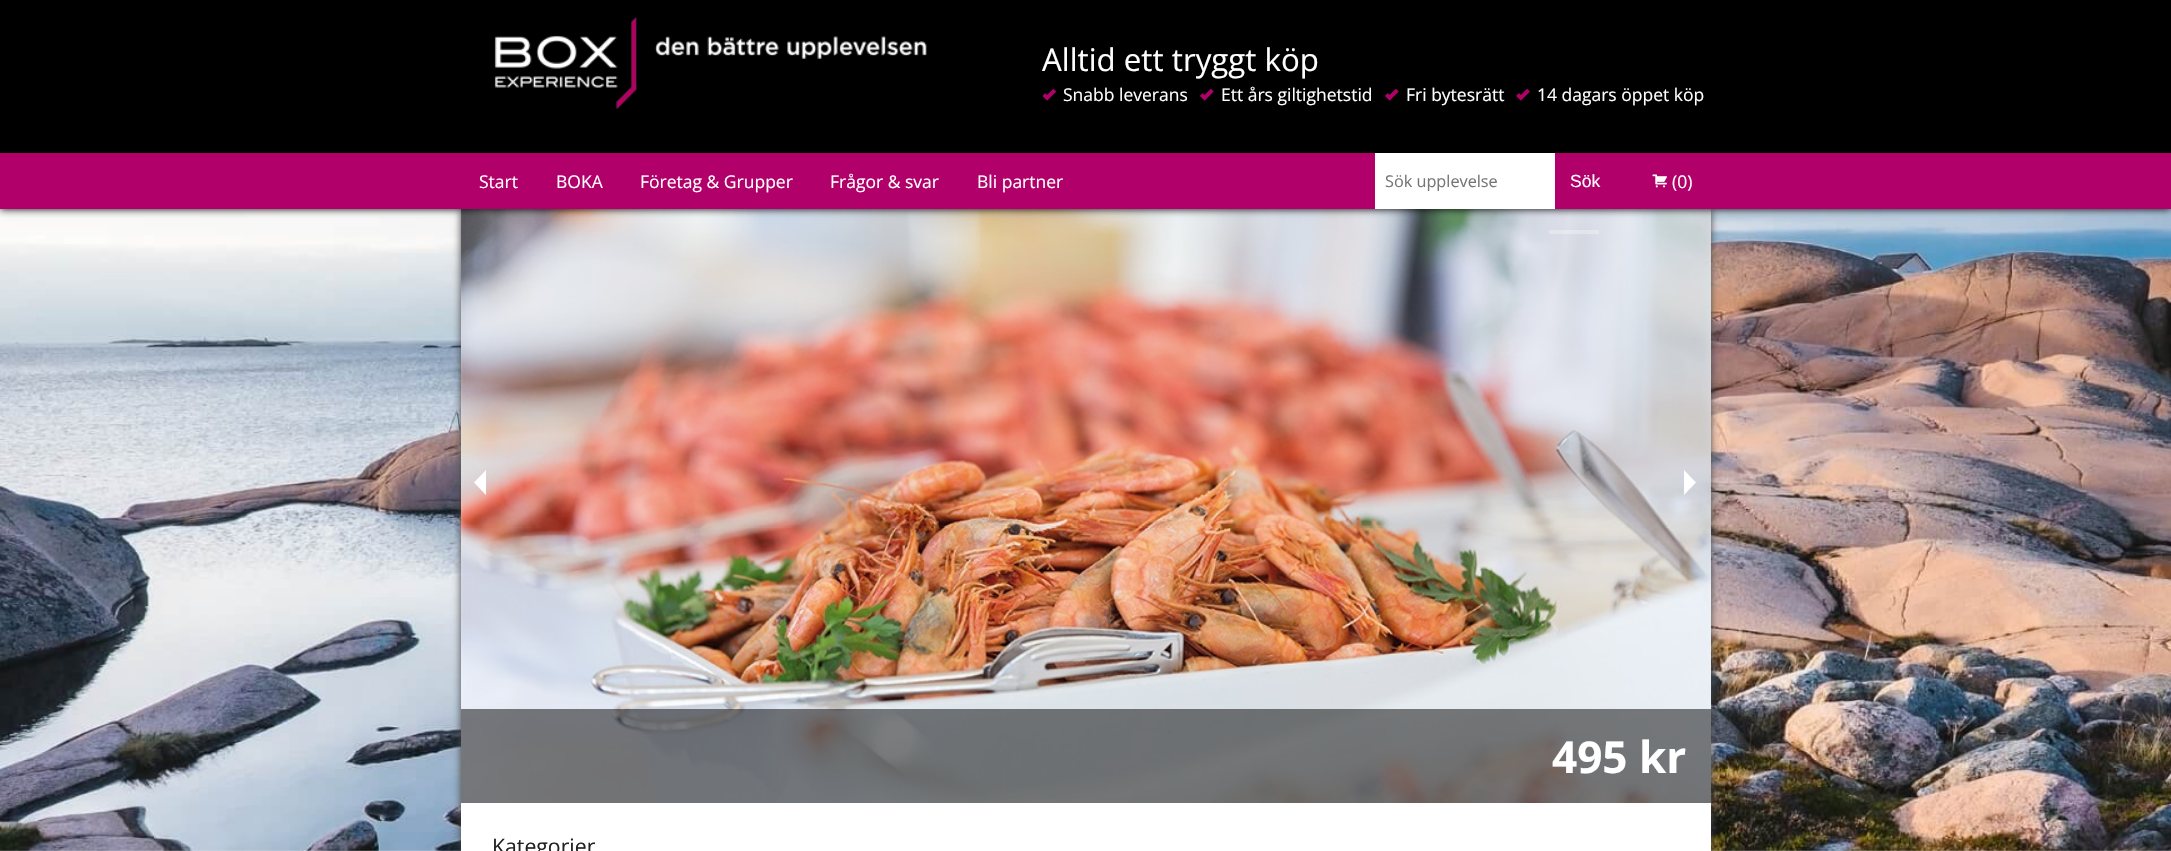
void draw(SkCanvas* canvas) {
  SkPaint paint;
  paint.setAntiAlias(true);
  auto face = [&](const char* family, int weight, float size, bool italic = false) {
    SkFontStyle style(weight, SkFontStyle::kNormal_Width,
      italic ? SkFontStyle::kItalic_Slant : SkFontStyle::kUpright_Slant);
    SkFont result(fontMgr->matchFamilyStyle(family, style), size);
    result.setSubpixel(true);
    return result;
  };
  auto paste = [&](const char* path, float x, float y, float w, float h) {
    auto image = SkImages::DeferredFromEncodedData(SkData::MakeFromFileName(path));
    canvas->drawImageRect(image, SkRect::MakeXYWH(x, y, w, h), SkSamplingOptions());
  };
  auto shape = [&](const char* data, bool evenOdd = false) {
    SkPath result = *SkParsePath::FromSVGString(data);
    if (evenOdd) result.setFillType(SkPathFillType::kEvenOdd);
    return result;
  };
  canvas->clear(0xffffffff);
  paste("img/1.png", 0, 209, 2171, 642);
  paint.setColor(0xff000000);
  canvas->drawRect(SkRect::MakeXYWH(0, 0, 2171, 153), paint);
  paste("img/2.png", 494, 17, 433, 92);
  paste("img/3.png", 1043, 88, 13, 13);
  paste("img/4.png", 1200, 88, 14, 13);
  paste("img/4.png", 1385, 88, 14, 13);
  paste("img/5.png", 1516, 88, 14, 13);
  paint.setColor(0xff474747);
  paint.setMaskFilter(SkMaskFilter::MakeBlur(kNormal_SkBlurStyle, 4));
  canvas->drawRect(SkRect::MakeXYWH(461, 209, 1250, 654), paint);
  paint.setMaskFilter(nullptr);
  paste("img/7.png", 461, 209, 1250, 594);
  paint.setColor(0xff000000);
  paint.setMaskFilter(SkMaskFilter::MakeBlur(kNormal_SkBlurStyle, 4));
  canvas->drawRect(SkRect::MakeXYWH(0, 153, 2171, 56), paint);
  paint.setMaskFilter(nullptr);
  paint.setColor(0xffb10069);
  canvas->drawRect(SkRect::MakeXYWH(0, 153, 2171, 56), paint);
  paint.setColor(0xffffffff);
  canvas->drawRect(SkRect::MakeXYWH(1375, 153, 180, 56), paint);
  paste("img/6.png", 1652, 174, 15, 14);
  canvas->drawRect(SkRect::MakeXYWH(461, 803, 1250, 48), paint);
  paint.setColor(0x4dffffff);
  canvas->drawRect(SkRect::MakeXYWH(1549, 230, 50, 4), paint);
  paint.setColor(0xffffffff);
  canvas->drawPath(shape("M486 470V495L474 482.5Z"), paint);
  canvas->drawPath(shape("M1684 495V470L1696 482.5Z"), paint);
  paint.setColor(0x80000000);
  canvas->drawRect(SkRect::MakeXYWH(461, 709, 1250, 94), paint);
  auto f0 = face("Open Sans", 400, 31.25f);
  paint.setColor(0xffffffff);
  canvas->drawString("Alltid ett tryggt köp", 1042, 71, f0, paint);
  auto f1 = face("Open Sans", 400, 17.5f);
  {
    const struct { const char* s; float x, y; } items[] = {
      {"Snabb leverans", 1063, 101},
      {"Ett års giltighetstid", 1221, 101},
      {"Fri bytesrätt", 1406, 101},
      {"14 dagars öppet köp", 1537, 101},
      {"Start", 479, 188},
      {"BOKA", 556, 188},
      {"Företag & Grupper", 640, 188},
      {"Frågor & svar", 830, 188},
      {"Bli partner", 977, 188},
    };
    for (auto [s, x, y] : items) {
      canvas->drawString(s, x, y, f1, paint);
    }
  }
  auto f2 = face("Open Sans", 400, 16.25f);
  paint.setColor(0xff757575);
  canvas->drawString("Sök upplevelse", 1385, 187, f2, paint);
  auto f3 = face("Liberation Sans", 400, 17.5f);
  paint.setColor(0xffffffff);
  canvas->drawString("Sök", 1570, 187, f3, paint);
  canvas->drawString("(0)", 1672, 188, f1, paint);
  auto f4 = face("Open Sans", 700, 44);
  canvas->drawString("495 kr", 1552, 773, f4, paint);
  auto f5 = face("Open Sans", 400, 21.25f);
  paint.setColor(0xff222222);
  canvas->drawString("Kategorier", 492, 854, f5, paint);
}
